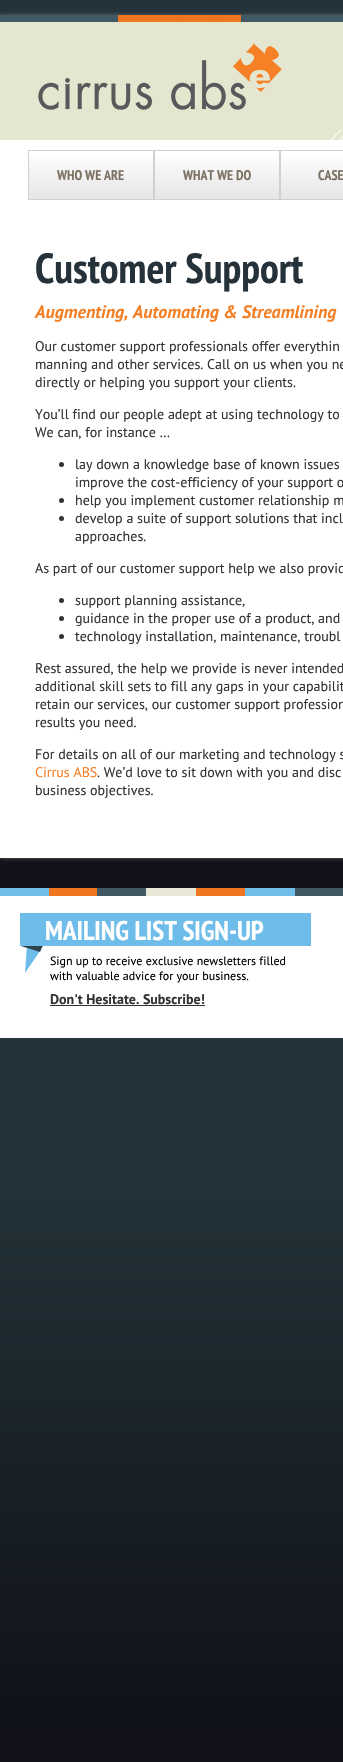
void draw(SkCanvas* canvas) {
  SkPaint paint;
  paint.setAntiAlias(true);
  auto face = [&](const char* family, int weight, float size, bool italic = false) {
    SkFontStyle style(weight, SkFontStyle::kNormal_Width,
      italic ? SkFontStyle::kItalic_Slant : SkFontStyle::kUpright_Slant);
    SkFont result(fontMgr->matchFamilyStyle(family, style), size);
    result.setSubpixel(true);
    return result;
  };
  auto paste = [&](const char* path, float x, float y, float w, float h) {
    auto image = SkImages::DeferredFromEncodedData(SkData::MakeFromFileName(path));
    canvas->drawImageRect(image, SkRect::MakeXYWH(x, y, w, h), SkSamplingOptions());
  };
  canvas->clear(0xffffffff);
  {
    const SkColor colors[] = {0xff233339, 0xff101119};
    const float stops[] = {0.13f, 0.67f};
    const SkPoint ends[] = {{171, 0}, {172, 1038}};
    paint.setShader(SkGradientShader::MakeLinear(ends, colors, stops, 2, SkTileMode::kClamp));
    paint.setAlpha(255);
  }
  canvas->drawRect(SkRect::MakeXYWH(0, 0, 343, 888), paint);
  {
    const SkColor colors[] = {0xff233339, 0xff101119};
    const float stops[] = {0.13f, 0.67f};
    const SkPoint ends[] = {{171, 1038}, {172, 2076}};
    paint.setShader(SkGradientShader::MakeLinear(ends, colors, stops, 2, SkTileMode::kClamp));
    paint.setAlpha(255);
  }
  canvas->drawRect(SkRect::MakeXYWH(0, 1038, 343, 724), paint);
  paint.setShader(nullptr);
  paint.setColor(0xff666666);
  paint.setMaskFilter(SkMaskFilter::MakeBlur(kNormal_SkBlurStyle, 2));
  canvas->drawRect(SkRect::MakeXYWH(0, 15, 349, 843), paint);
  paint.setMaskFilter(nullptr);
  paint.setColor(0xffffffff);
  canvas->drawRect(SkRect::MakeXYWH(0, 140, 343, 718), paint);
  paste("img/1.png", 0, 15, 343, 7);
  paint.setColor(0xffe5e6cf);
  canvas->drawRect(SkRect::MakeXYWH(0, 22, 343, 118), paint);
  paste("img/2.png", 330, 129, 13, 11);
  paste("img/3.png", 38, 43, 244, 67);
  paint.setStroke(true);
  paint.setStrokeWidth(1);
  paint.setColor(0xffd0d0d0);
  canvas->drawRect(SkRect::MakeXYWH(28.5f, 150.5f, 125, 49), paint);
  paint.setStroke(false);
  {
    const SkColor colors[] = {0xffffffff, 0xffe5e5e5};
    const float stops[] = {0, 1};
    const SkPoint ends[] = {{91, 151}, {91, 199}};
    paint.setShader(SkGradientShader::MakeLinear(ends, colors, stops, 2, SkTileMode::kClamp));
    paint.setAlpha(255);
  }
  canvas->drawRect(SkRect::MakeXYWH(29, 156, 124, 43), paint);
  paint.setStroke(true);
  paint.setShader(nullptr);
  paint.setColor(0xffd0d0d0);
  canvas->drawRect(SkRect::MakeXYWH(154.5f, 150.5f, 125, 49), paint);
  paint.setStroke(false);
  {
    const SkColor colors[] = {0xffffffff, 0xffe5e5e5};
    const float stops[] = {0, 1};
    const SkPoint ends[] = {{217, 151}, {217, 199}};
    paint.setShader(SkGradientShader::MakeLinear(ends, colors, stops, 2, SkTileMode::kClamp));
    paint.setAlpha(255);
  }
  canvas->drawRect(SkRect::MakeXYWH(155, 156, 124, 43), paint);
  paint.setStroke(true);
  paint.setShader(nullptr);
  paint.setColor(0xffd0d0d0);
  canvas->drawRect(SkRect::MakeXYWH(280.5f, 150.5f, 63, 49), paint);
  paint.setStroke(false);
  {
    const SkColor colors[] = {0xffffffff, 0xffe5e5e5};
    const float stops[] = {0, 1};
    const SkPoint ends[] = {{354, 151}, {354, 199}};
    paint.setShader(SkGradientShader::MakeLinear(ends, colors, stops, 2, SkTileMode::kClamp));
    paint.setAlpha(255);
  }
  canvas->drawRect(SkRect::MakeXYWH(281, 156, 62, 43), paint);
  paint.setShader(nullptr);
  paint.setColor(0xff333333);
  canvas->drawCircle(61.5f, 464.5f, 2.5f, paint);
  canvas->drawCircle(61.5f, 500.5f, 2.5f, paint);
  canvas->drawCircle(61.5f, 518.5f, 2.5f, paint);
  canvas->drawCircle(61.5f, 600.5f, 2.5f, paint);
  canvas->drawCircle(61.5f, 618.5f, 2.5f, paint);
  canvas->drawCircle(61.5f, 636.5f, 2.5f, paint);
  {
    const struct { float x, y, w, h; SkColor color; } items[] = {
      {0, 888, 49, 8, 0xff6fbde9},
      {49, 888, 48, 8, 0xffef7521},
      {97, 888, 49, 8, 0xff415962},
      {146, 888, 50, 8, 0xffe9e8d7},
      {196, 888, 50, 8, 0xffef7521},
      {245, 888, 50, 8, 0xff6fbde9},
      {295, 888, 48, 8, 0xff415962},
    };
    for (auto [x, y, w, h, color] : items) {
      paint.setColor(color);
      canvas->drawRect(SkRect::MakeXYWH(x, y, w, h), paint);
    }
  }
  paste("img/4.png", 20, 913, 291, 60);
  paint.setColor(0xff333333);
  canvas->drawRect(SkRect::MakeXYWH(50, 1005, 155, 1), paint);
  auto f0 = face("PT Sans Narrow", 700, 14);
  paint.setColor(0xff7c7264);
  {
    const struct { const char* s; float x, y; } items[] = {
      {"WHO WE ARE", 57, 180},
      {"WHAT WE DO", 183, 180},
      {"CASE", 318, 180},
    };
    for (auto [s, x, y] : items) {
      canvas->drawString(s, x, y, f0, paint);
    }
  }
  auto f1 = face("PT Sans Narrow", 700, 42);
  paint.setColor(0xff25323a);
  canvas->drawString("Customer Support", 35, 283, f1, paint);
  auto f2 = face("PT Sans", 700, 18, true);
  paint.setColor(0xfff57f25);
  canvas->drawString("Augmenting, Automating & Streamlining", 35, 318, f2, paint);
  auto f3 = face("PT Sans", 400, 14);
  paint.setColor(0xff333333);
  {
    const struct { const char* s; float x, y; } items[] = {
      {"Our customer support professionals offer everythin", 35, 351},
      {"manning and other services. Call on us when you ne", 35, 369},
      {"directly or helping you support your clients.", 35, 387},
      {"You’ll find our people adept at using technology to", 35, 419},
      {"We can, for instance …", 35, 437},
      {"lay down a knowledge base of known issues", 75, 469},
      {"improve the cost-efficiency of your support o", 75, 487},
      {"help you implement customer relationship m", 75, 505},
      {"develop a suite of support solutions that incl", 75, 523},
      {"approaches.", 75, 541},
      {"As part of our customer support help we also provid", 35, 573},
      {"support planning assistance,", 75, 605},
      {"guidance in the proper use of a product, and", 75, 623},
      {"technology installation, maintenance, troubl", 75, 641},
      {"Rest assured, the help we provide is never intended", 35, 673},
      {"additional skill sets to fill any gaps in your capabilit", 35, 691},
      {"retain our services, our customer support profession", 35, 709},
      {"results you need.", 35, 727},
      {"For details on all of our marketing and technology s", 35, 759},
    };
    for (auto [s, x, y] : items) {
      canvas->drawString(s, x, y, f3, paint);
    }
  }
  paint.setColor(0xfff57f25);
  canvas->drawString("Cirrus ABS", 35, 777, f3, paint);
  paint.setColor(0xff333333);
  canvas->drawString(". We’d love to sit down with you and disc", 97, 777, f3, paint);
  canvas->drawString("business objectives.", 35, 795, f3, paint);
  auto f4 = face("PT Sans Narrow", 700, 27);
  paint.setColor(0xffffffff);
  canvas->drawString("MAILING LIST SIGN-UP", 45, 940, f4, paint);
  auto f5 = face("PT Sans", 400, 12);
  paint.setColor(0xff000000);
  canvas->drawString("Sign up to receive exclusive newsletters filled", 50, 965, f5, paint);
  canvas->drawString("with valuable advice for your business.", 50, 980, f5, paint);
  auto f6 = face("PT Sans", 700, 14);
  paint.setColor(0xff333333);
  canvas->drawString("Don't Hesitate. Subscribe!", 50, 1004, f6, paint);
}
